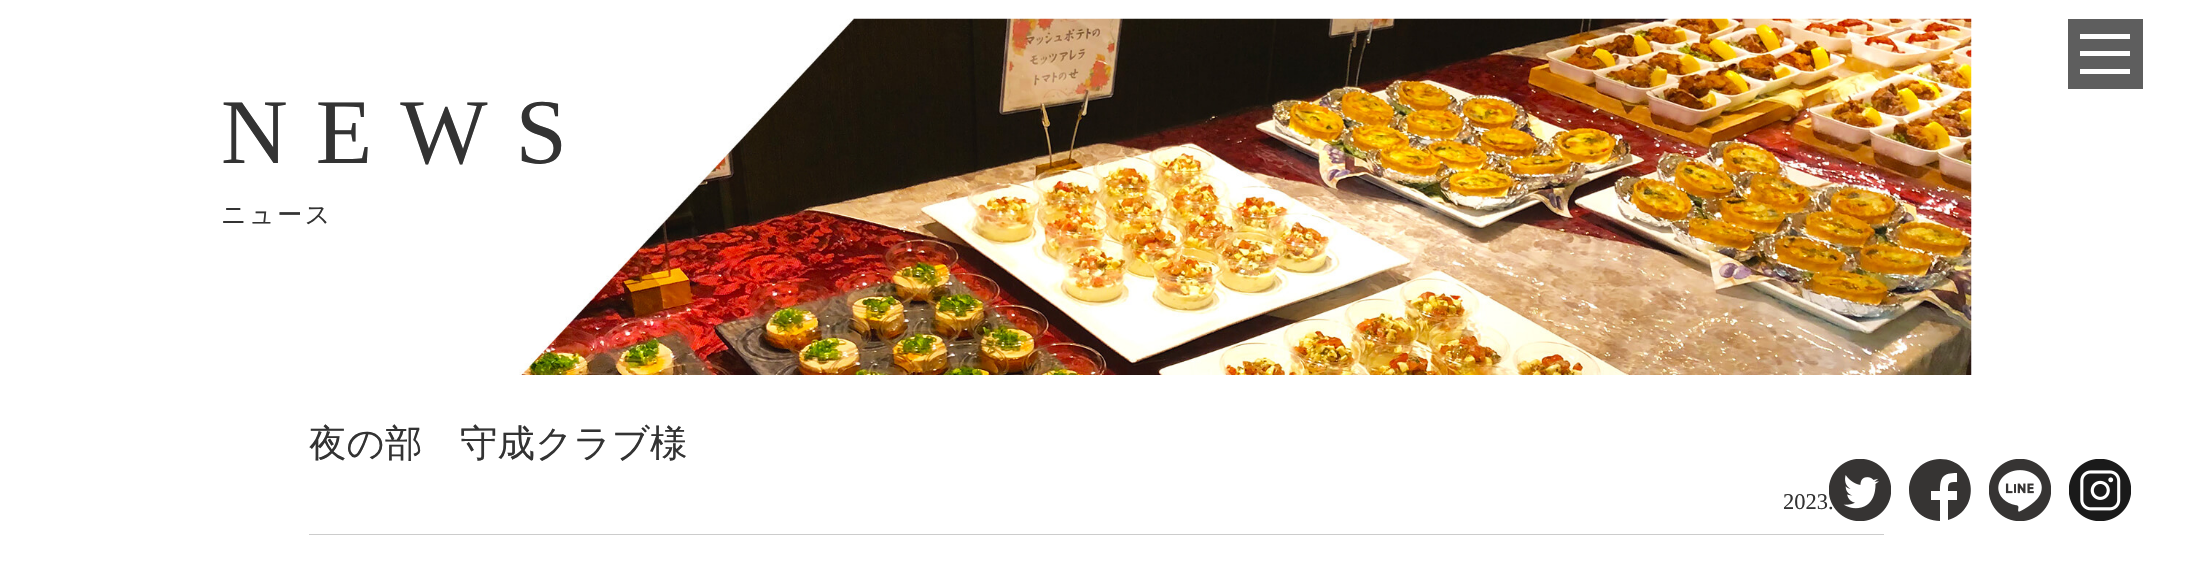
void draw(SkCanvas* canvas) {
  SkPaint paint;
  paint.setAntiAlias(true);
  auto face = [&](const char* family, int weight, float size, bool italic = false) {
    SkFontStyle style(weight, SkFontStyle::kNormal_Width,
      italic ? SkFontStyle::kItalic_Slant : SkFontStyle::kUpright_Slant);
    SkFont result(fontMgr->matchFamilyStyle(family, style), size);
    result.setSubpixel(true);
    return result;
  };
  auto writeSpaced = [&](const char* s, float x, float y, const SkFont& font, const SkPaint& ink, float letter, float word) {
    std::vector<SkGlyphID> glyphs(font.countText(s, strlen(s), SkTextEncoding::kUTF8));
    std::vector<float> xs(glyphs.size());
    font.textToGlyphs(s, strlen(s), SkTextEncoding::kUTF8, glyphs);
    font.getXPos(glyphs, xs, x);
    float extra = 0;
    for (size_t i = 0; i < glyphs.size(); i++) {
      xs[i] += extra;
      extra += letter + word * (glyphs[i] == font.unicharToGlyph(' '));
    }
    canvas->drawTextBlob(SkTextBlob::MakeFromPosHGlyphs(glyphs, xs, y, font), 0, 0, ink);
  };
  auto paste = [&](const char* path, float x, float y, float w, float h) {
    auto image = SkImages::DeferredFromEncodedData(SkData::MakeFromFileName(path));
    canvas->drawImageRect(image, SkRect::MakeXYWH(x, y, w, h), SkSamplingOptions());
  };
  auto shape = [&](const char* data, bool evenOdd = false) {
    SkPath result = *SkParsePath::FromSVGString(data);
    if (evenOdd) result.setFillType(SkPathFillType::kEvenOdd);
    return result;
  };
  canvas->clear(0xffffffff);
  {
    const struct { float x, y, w, h; SkColor color; } items[] = {
      {2068, 19, 75, 70, 0xff5e5e5e},
      {2080, 34, 50, 5, 0xffffffff},
      {2080, 51, 50, 5, 0xffffffff},
      {2080, 69, 50, 5, 0xffffffff},
    };
    for (auto [x, y, w, h, color] : items) {
      paint.setColor(color);
      canvas->drawRect(SkRect::MakeXYWH(x, y, w, h), paint);
    }
  }
  paste("img/1.png", 519, 18, 1453, 357);
  paint.setColor(0xffcccccc);
  canvas->drawRect(SkRect::MakeXYWH(309, 534, 1575, 1), paint);
  paint.setColor(0xff363433);
  canvas->drawPath(shape("M1940 459C1923 459 1909 473 1909 490C1909 507 1922 521 1940 521V500H1931V491H1940C1940 477 1943 473 1957 473V482C1948 482 1948 483 1948 491H1957V500H1948V520C1983 510 1976 459 1940 459Z"), paint);
  paste("img/3.png", 1989, 459, 62, 62);
  paste("img/4.png", 2069, 459, 62, 62);
  auto f0 = face("Liberation Serif", 400, 92.5f);
  paint.setColor(0xff333333);
  writeSpaced("NEWS", 221, 163, f0, paint, 28, 0);
  auto f1 = face("WenQuanYi Zen Hei", 500, 25);
  writeSpaced("ニュース", 221, 223, f1, paint, 2.5f, 0);
  auto f2 = face("WenQuanYi Zen Hei", 500, 37.5f);
  canvas->drawString("夜の部　守成クラブ様", 309, 456, f2, paint);
  auto f3 = face("Liberation Serif", 400, 22.5f);
  canvas->drawString("2023.", 1783, 509, f3, paint);
  paste("img/2.png", 1829, 459, 62, 62);
}
